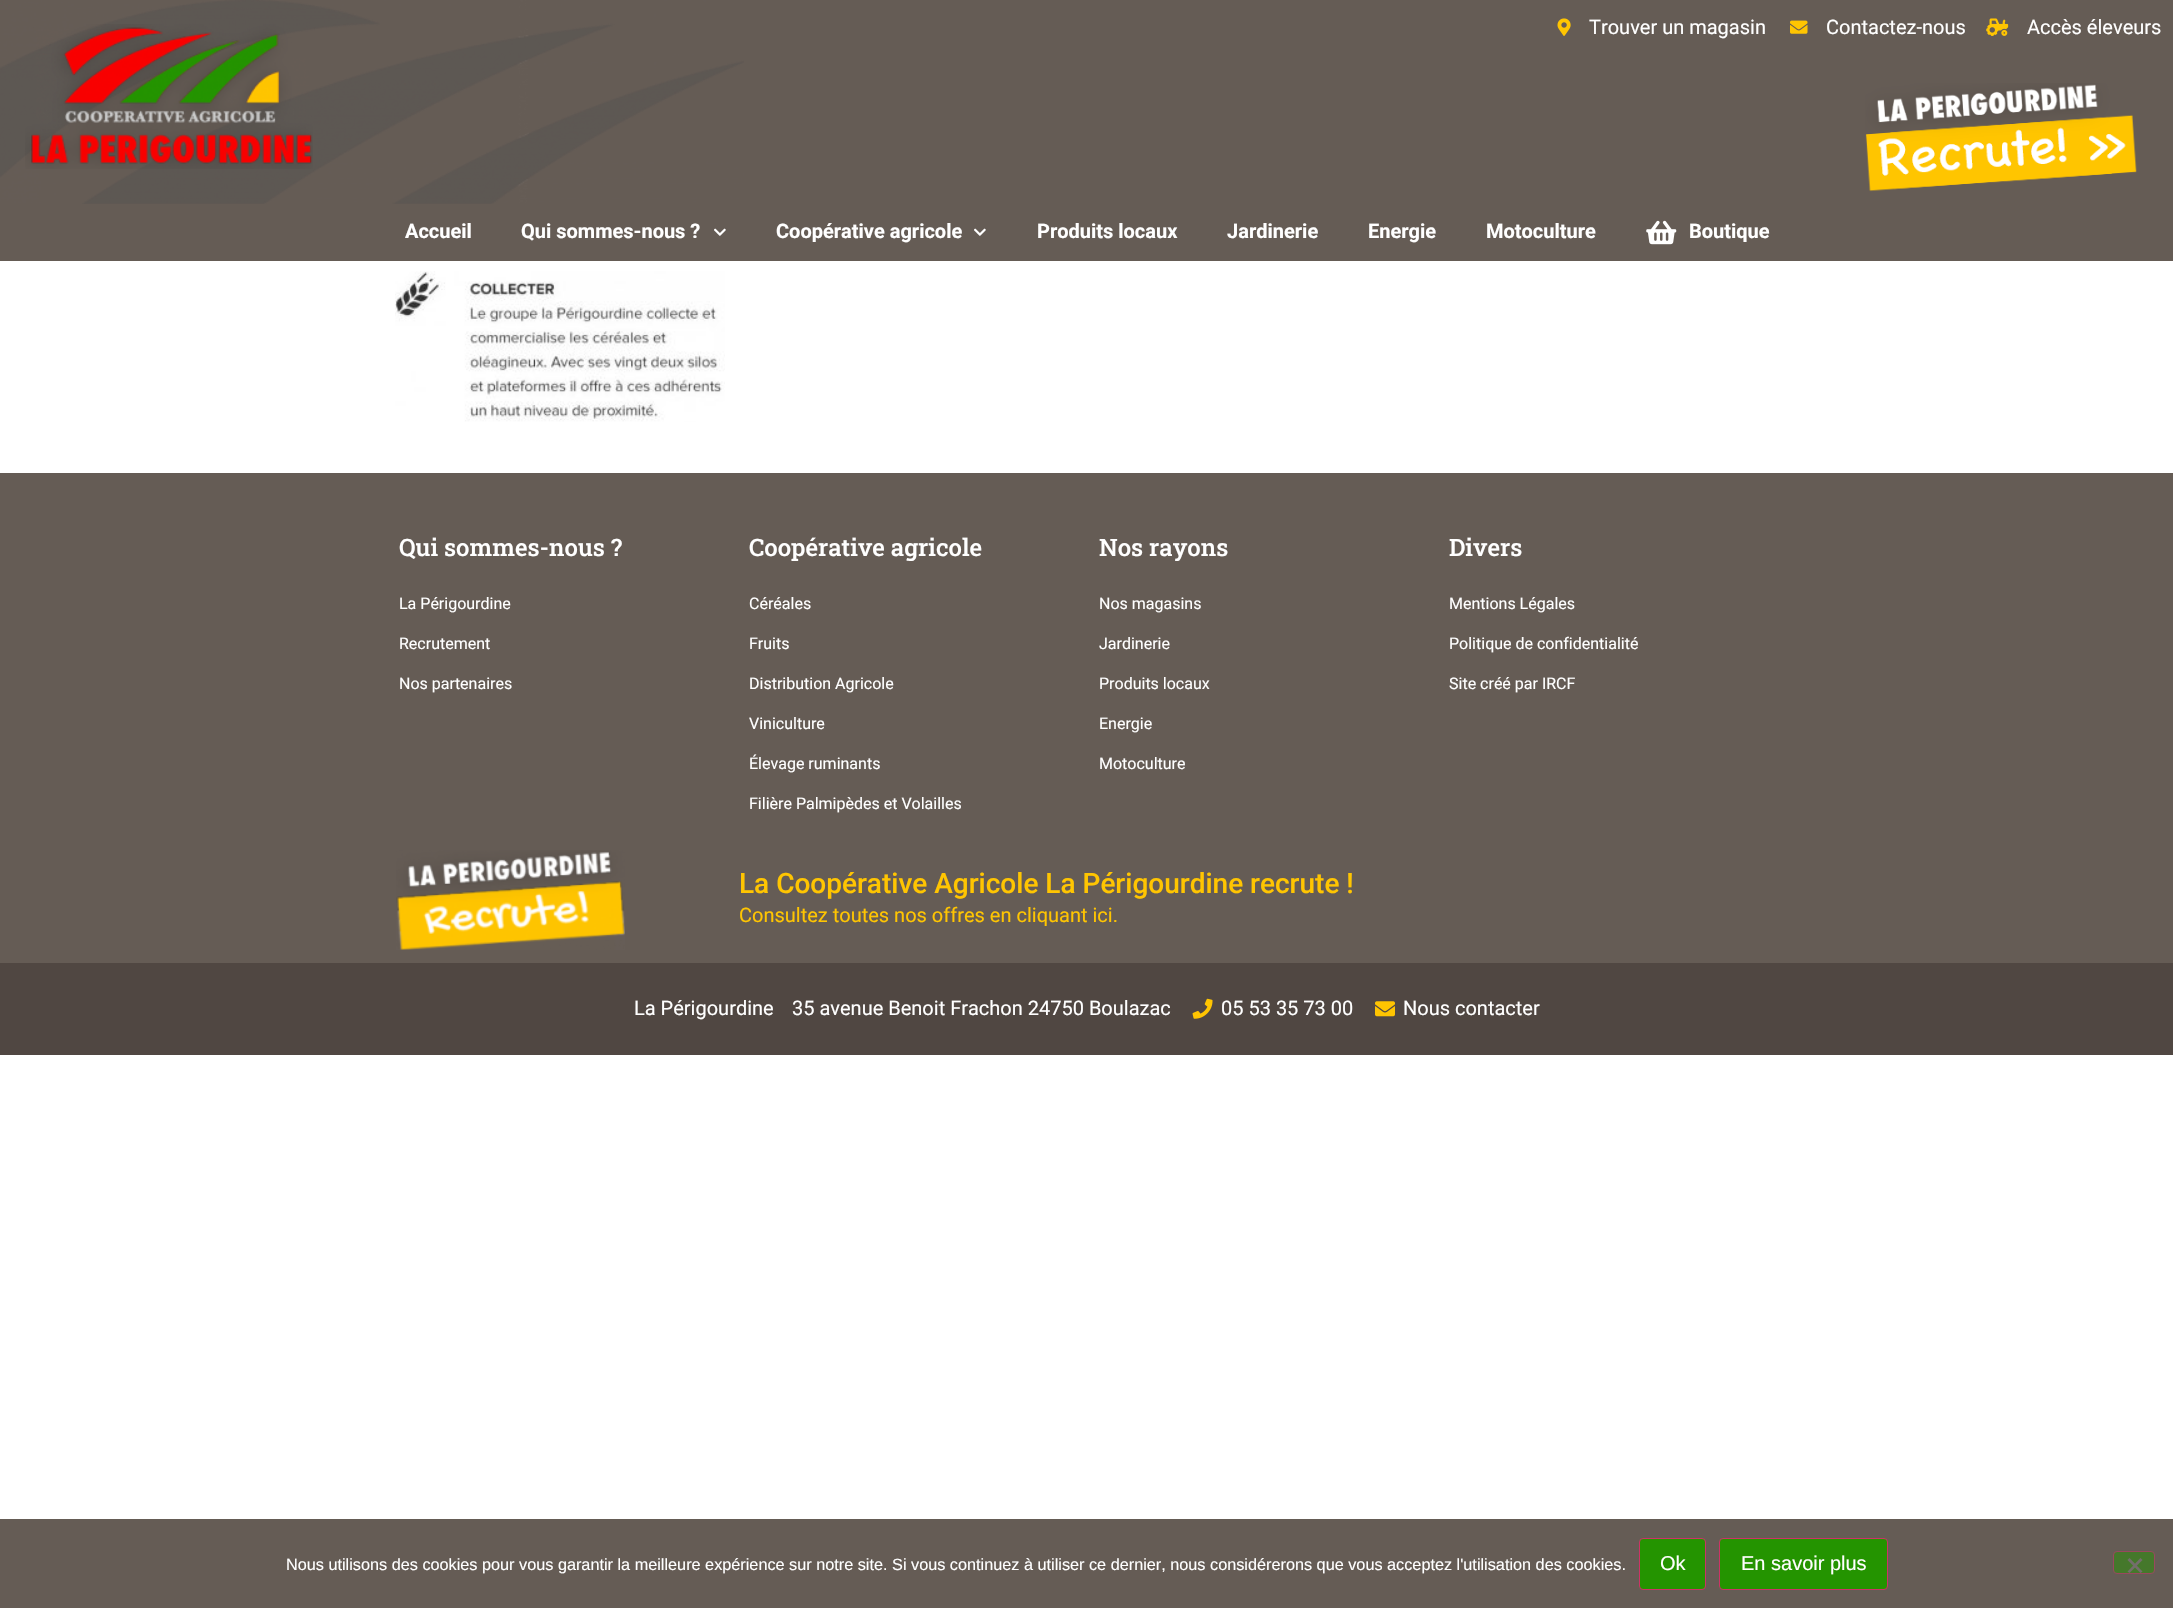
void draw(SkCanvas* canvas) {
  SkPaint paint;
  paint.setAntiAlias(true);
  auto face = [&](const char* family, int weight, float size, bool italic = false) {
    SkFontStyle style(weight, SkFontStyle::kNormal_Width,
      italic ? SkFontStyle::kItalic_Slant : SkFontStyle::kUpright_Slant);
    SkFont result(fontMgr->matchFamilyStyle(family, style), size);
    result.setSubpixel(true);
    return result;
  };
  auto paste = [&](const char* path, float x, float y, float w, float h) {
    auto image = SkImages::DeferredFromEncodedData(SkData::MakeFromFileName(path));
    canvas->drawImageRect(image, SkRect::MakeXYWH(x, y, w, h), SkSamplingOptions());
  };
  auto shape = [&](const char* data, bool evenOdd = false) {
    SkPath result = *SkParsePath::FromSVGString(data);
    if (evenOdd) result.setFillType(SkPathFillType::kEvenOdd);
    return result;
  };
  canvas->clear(0xffffffff);
  paint.setColor(0xff655c55);
  canvas->drawRect(SkRect::MakeXYWH(0, 0, 2173, 261), paint);
  paste("img/1.png", 0, 0, 744, 204);
  paste("img/2.png", 25, 24, 288, 145);
  paste("img/3.png", 1557, 18, 14, 18);
  paste("img/4.png", 1790, 20, 18, 14);
  paste("img/5.png", 1986, 18, 23, 18);
  paste("img/6.png", 1865, 83, 272, 109);
  paste("img/7.png", 714, 228, 12, 8);
  paste("img/7.png", 974, 228, 12, 8);
  paste("img/8.png", 1646, 220, 31, 25);
  paste("img/9.png", 395, 271, 330, 151);
  canvas->drawRect(SkRect::MakeXYWH(0, 473, 2173, 490), paint);
  paste("img/10.png", 396, 850, 229, 100);
  paint.setColor(0xff504742);
  canvas->drawRect(SkRect::MakeXYWH(0, 963, 2173, 92), paint);
  paste("img/11.png", 1192, 998, 21, 21);
  paste("img/12.png", 1375, 1001, 20, 16);
  paint.setColor(0xff655c55);
  canvas->drawRect(SkRect::MakeXYWH(0, 1519, 2173, 89), paint);
  paint.setColor(0xff249400);
  canvas->drawRoundRect(SkRect::MakeXYWH(1639.5f, 1538.5f, 66, 51), 3.5f, 3.5f, paint);
  paint.setStroke(true);
  paint.setStrokeWidth(1);
  paint.setColor(0xffcc3366);
  canvas->drawRoundRect(SkRect::MakeXYWH(1639.5f, 1538.5f, 66, 51), 3.5f, 3.5f, paint);
  paint.setStroke(false);
  paint.setColor(0xff249400);
  canvas->drawRoundRect(SkRect::MakeXYWH(1719.5f, 1538.5f, 168, 51), 3.5f, 3.5f, paint);
  paint.setStroke(true);
  paint.setColor(0xffcc3366);
  canvas->drawRoundRect(SkRect::MakeXYWH(1719.5f, 1538.5f, 168, 51), 3.5f, 3.5f, paint);
  paint.setStroke(false);
  paint.setColor(0xff45782b);
  canvas->drawRoundRect(SkRect::MakeXYWH(2113.5f, 1551.5f, 41, 22), 3.5f, 3.5f, paint);
  paint.setStroke(true);
  paint.setColor(0xff99485e);
  canvas->drawRoundRect(SkRect::MakeXYWH(2113.5f, 1551.5f, 41, 22), 3.5f, 3.5f, paint);
  paint.setStroke(false);
  paint.setColor(0xff736e6b);
  canvas->drawPath(shape("M2140.5 1558L2142.5 1560L2129.5 1573L2127.5 1571.5Z"), paint);
  canvas->drawPath(shape("M2127.5 1560L2129.5 1558L2142.5 1571.5L2140.5 1573Z"), paint);
  auto f0 = face("Roboto", 400, 20);
  paint.setColor(0xffffffff);
  {
    const struct { const char* s; float x, y; } items[] = {
      {"Trouver un magasin", 1589, 34},
      {"Contactez-nous", 1826, 34},
      {"Accès éleveurs", 2027, 34},
    };
    for (auto [s, x, y] : items) {
      canvas->drawString(s, x, y, f0, paint);
    }
  }
  auto f1 = face("Roboto", 700, 20);
  {
    const struct { const char* s; float x, y; } items[] = {
      {"Accueil", 405, 238},
      {"Qui sommes-nous ?", 521, 238},
      {"Coopérative agricole", 776, 238},
      {"Produits locaux", 1037, 238},
      {"Jardinerie", 1227, 238},
      {"Energie", 1368, 238},
      {"Motoculture", 1486, 238},
      {"Boutique", 1689, 238},
    };
    for (auto [s, x, y] : items) {
      canvas->drawString(s, x, y, f1, paint);
    }
  }
  auto f2 = face("Roboto Slab", 500, 24);
  canvas->drawString("Qui sommes-nous ?", 399, 556, f2, paint);
  auto f3 = face("Roboto", 400, 16);
  {
    const struct { const char* s; float x, y; } items[] = {
      {"La Périgourdine", 399, 609},
      {"Recrutement", 399, 649},
      {"Nos partenaires", 399, 689},
    };
    for (auto [s, x, y] : items) {
      canvas->drawString(s, x, y, f3, paint);
    }
  }
  canvas->drawString("Coopérative agricole", 749, 556, f2, paint);
  {
    const struct { const char* s; float x, y; } items[] = {
      {"Céréales", 749, 609},
      {"Fruits", 749, 649},
      {"Distribution Agricole", 749, 689},
      {"Viniculture", 749, 729},
      {"Élevage ruminants", 749, 769},
      {"Filière Palmipèdes et Volailles", 749, 809},
    };
    for (auto [s, x, y] : items) {
      canvas->drawString(s, x, y, f3, paint);
    }
  }
  canvas->drawString("Nos rayons", 1099, 556, f2, paint);
  {
    const struct { const char* s; float x, y; } items[] = {
      {"Nos magasins", 1099, 609},
      {"Jardinerie", 1099, 649},
      {"Produits locaux", 1099, 689},
      {"Energie", 1099, 729},
      {"Motoculture", 1099, 769},
    };
    for (auto [s, x, y] : items) {
      canvas->drawString(s, x, y, f3, paint);
    }
  }
  canvas->drawString("Divers", 1449, 556, f2, paint);
  {
    const struct { const char* s; float x, y; } items[] = {
      {"Mentions Légales", 1449, 609},
      {"Politique de confidentialité", 1449, 649},
      {"Site créé par IRCF", 1449, 689},
    };
    for (auto [s, x, y] : items) {
      canvas->drawString(s, x, y, f3, paint);
    }
  }
  auto f4 = face("Roboto", 500, 28);
  paint.setColor(0xffffc501);
  canvas->drawString("La Coopérative Agricole La Périgourdine recrute !", 739, 893, f4, paint);
  canvas->drawString("Consultez toutes nos offres en cliquant ici.", 739, 922, f0, paint);
  paint.setColor(0xffffffff);
  {
    const struct { const char* s; float x, y; } items[] = {
      {"La Périgourdine", 634, 1015},
      {"35 avenue Benoit Frachon 24750 Boulazac", 792, 1015},
      {"05 53 35 73 00", 1221, 1015},
      {"Nous contacter", 1403, 1015},
    };
    for (auto [s, x, y] : items) {
      canvas->drawString(s, x, y, f0, paint);
    }
  }
  auto f5 = face("Liberation Sans", 400, 16.25f);
  canvas->drawString("Nous utilisons des cookies pour vous garantir la meilleure expérience sur notre site. Si vous continuez à utiliser ce dernier, nous considérerons que vous acceptez l'utilisation des cookies.", 286, 1570, f5, paint);
  auto f6 = face("Liberation Sans", 400, 20);
  canvas->drawString("Ok", 1660, 1570, f6, paint);
  canvas->drawString("En savoir plus", 1741, 1570, f6, paint);
}
